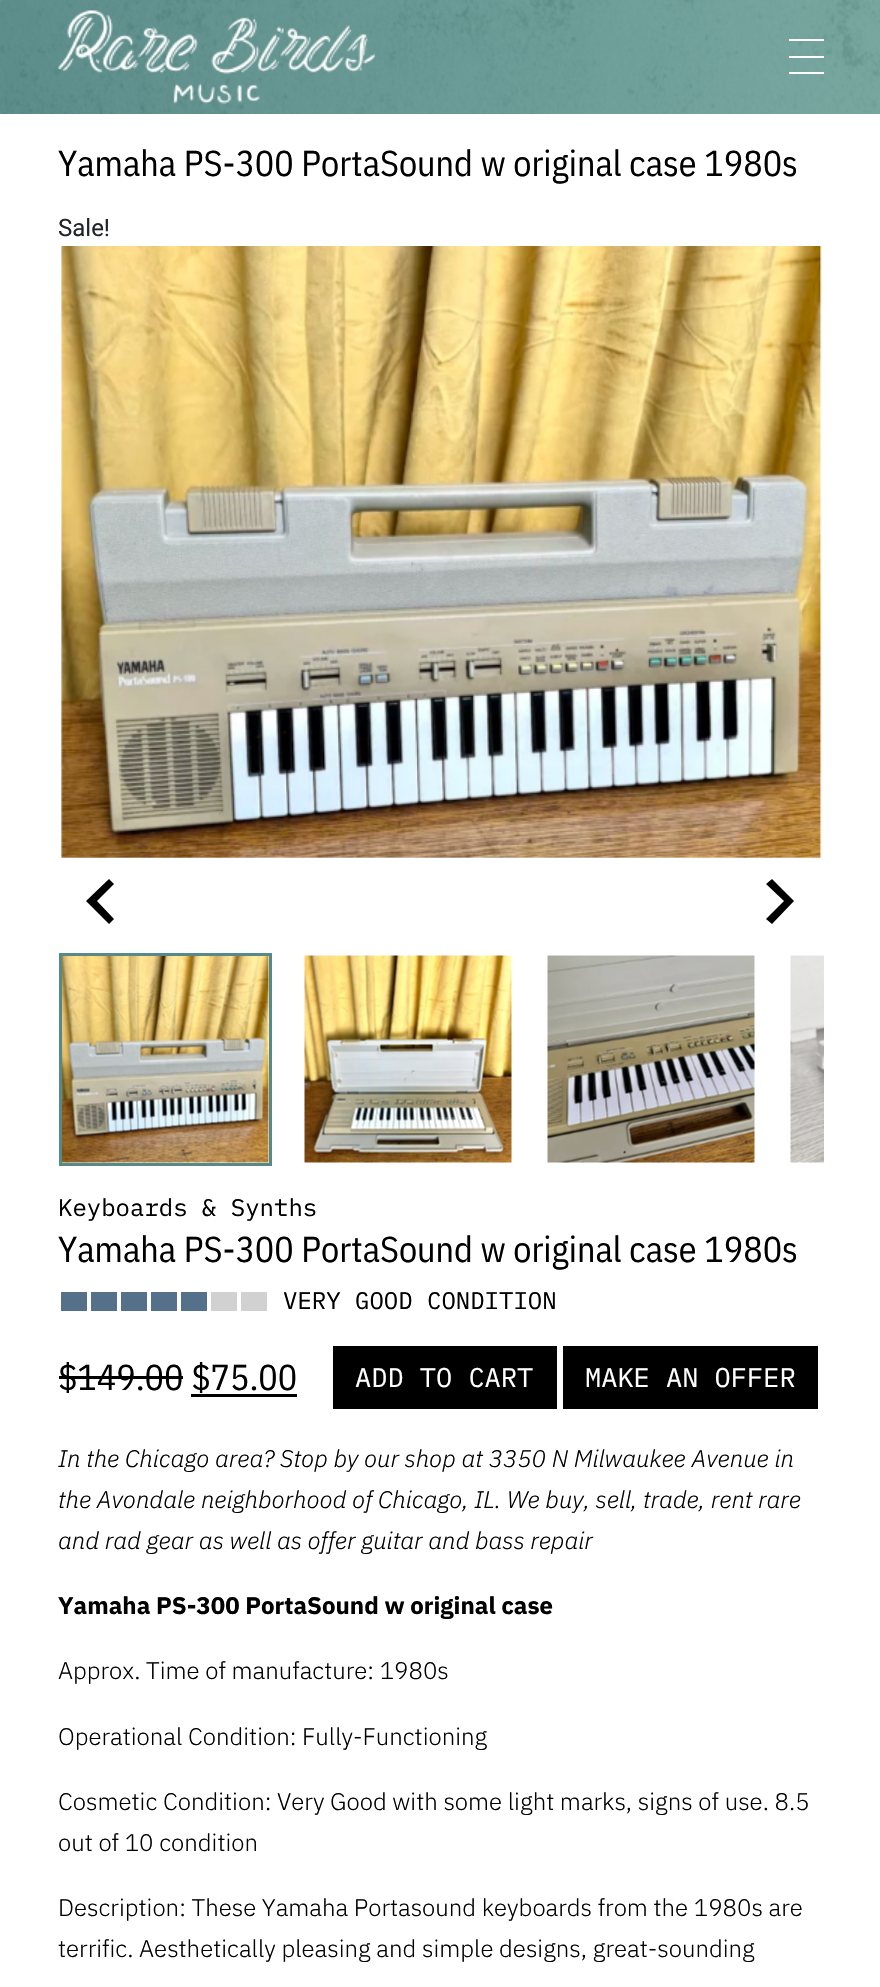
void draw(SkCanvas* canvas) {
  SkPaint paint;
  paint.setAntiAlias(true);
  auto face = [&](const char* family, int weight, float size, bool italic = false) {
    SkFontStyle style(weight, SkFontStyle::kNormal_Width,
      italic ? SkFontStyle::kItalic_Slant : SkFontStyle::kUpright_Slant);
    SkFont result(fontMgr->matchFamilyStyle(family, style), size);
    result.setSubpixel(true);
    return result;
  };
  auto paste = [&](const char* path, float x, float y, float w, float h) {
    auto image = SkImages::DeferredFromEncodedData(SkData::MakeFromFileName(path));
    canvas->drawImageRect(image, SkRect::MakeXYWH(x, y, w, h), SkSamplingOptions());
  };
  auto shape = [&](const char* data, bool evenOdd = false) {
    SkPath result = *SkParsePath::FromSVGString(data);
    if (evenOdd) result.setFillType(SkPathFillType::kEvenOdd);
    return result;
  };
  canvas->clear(0xffffffff);
  paste("img/1.png", 0, 0, 880, 114);
  paste("img/2.png", 58, 10, 317, 94);
  {
    const struct { float x, y, w, h; SkColor color; } items[] = {
      {789, 39, 35, 2, 0xffffffff},
      {789, 56, 35, 2, 0xffffffff},
      {789, 72, 35, 2, 0xffffffff},
    };
    for (auto [x, y, w, h, color] : items) {
      paint.setColor(color);
      canvas->drawRect(SkRect::MakeXYWH(x, y, w, h), paint);
    }
  }
  paste("img/3.png", 61, 246, 761, 612);
  paint.setColor(0xff000000);
  canvas->drawPath(shape("M109 879L114 884L97 901L114 919L109 924L86 901Z"), paint);
  canvas->drawPath(shape("M772 879L766 884L784 901L766 919L772 924L794 901Z"), paint);
  paste("img/4.png", 62, 956, 207, 207);
  paint.setStroke(true);
  paint.setStrokeWidth(3);
  paint.setColor(0xff558a88);
  canvas->drawRect(SkRect::MakeXYWH(60.5f, 954.5f, 210, 210), paint);
  paste("img/5.png", 304, 955, 208, 208);
  paste("img/6.png", 547, 955, 208, 208);
  paste("img/7.png", 790, 955, 34, 208);
  paint.setStroke(false);
  {
    const struct { float x, y, w, h; SkColor color; } items[] = {
      {61, 1292, 26, 19, 0xff55718a},
      {91, 1292, 26, 19, 0xff55718a},
      {121, 1292, 26, 19, 0xff55718a},
      {151, 1292, 26, 19, 0xff54708a},
      {181, 1292, 26, 19, 0xff54708a},
      {211, 1292, 26, 19, 0xffd1d1d1},
      {241, 1292, 26, 19, 0xffd1d1d1},
      {59, 1376, 124, 3, 0xff000000},
      {191, 1394, 106, 3, 0xff000000},
      {333, 1346, 224, 63, 0xff000000},
      {563, 1346, 255, 63, 0xff000000},
    };
    for (auto [x, y, w, h, color] : items) {
      paint.setColor(color);
      canvas->drawRect(SkRect::MakeXYWH(x, y, w, h), paint);
    }
  }
  auto f0 = face("IBM Plex Sans Condensed", 400, 36);
  canvas->drawString("Yamaha PS-300 PortaSound w original case 1980s", 58, 176, f0, paint);
  auto f1 = face("Roboto", 400, 24);
  paint.setColor(0xff212529);
  canvas->drawString("Sale!", 58, 236, f1, paint);
  auto f2 = face("IBM Plex Mono", 400, 24);
  paint.setColor(0xff000000);
  canvas->drawString("Keyboards & Synths", 58, 1216, f2, paint);
  canvas->drawString("Yamaha PS-300 PortaSound w original case 1980s", 58, 1262, f0, paint);
  canvas->drawString("VERY GOOD CONDITION", 283, 1309, f2, paint);
  canvas->drawString("$149.00 $75.00", 58, 1390, f0, paint);
  auto f3 = face("IBM Plex Mono", 400, 27);
  paint.setColor(0xffffffff);
  canvas->drawString("ADD TO CART", 355, 1387, f3, paint);
  canvas->drawString("MAKE AN OFFER", 585, 1387, f3, paint);
  auto f4 = face("IBM Plex Sans", 300, 24, true);
  paint.setColor(0xff000000);
  {
    const struct { const char* s; float x, y; } items[] = {
      {"In the Chicago area? Stop by our shop at 3350 N Milwaukee Avenue in", 58, 1467},
      {"the Avondale neighborhood of Chicago, IL. We buy, sell, trade, rent rare", 58, 1508},
      {"and rad gear as well as offer guitar and bass repair", 58, 1549},
    };
    for (auto [s, x, y] : items) {
      canvas->drawString(s, x, y, f4, paint);
    }
  }
  auto f5 = face("IBM Plex Sans", 700, 24);
  canvas->drawString("Yamaha PS-300 PortaSound w original case", 58, 1614, f5, paint);
  auto f6 = face("IBM Plex Sans", 300, 24);
  {
    const struct { const char* s; float x, y; } items[] = {
      {"Approx. Time of manufacture: 1980s", 58, 1679},
      {"Operational Condition: Fully-Functioning", 58, 1745},
      {"Cosmetic Condition: Very Good with some light marks, signs of use. 8.5", 58, 1810},
      {"out of 10 condition", 58, 1851},
      {"Description: These Yamaha Portasound keyboards from the 1980s are", 58, 1916},
      {"terrific. Aesthetically pleasing and simple designs, great-sounding", 58, 1957},
    };
    for (auto [s, x, y] : items) {
      canvas->drawString(s, x, y, f6, paint);
    }
  }
}
